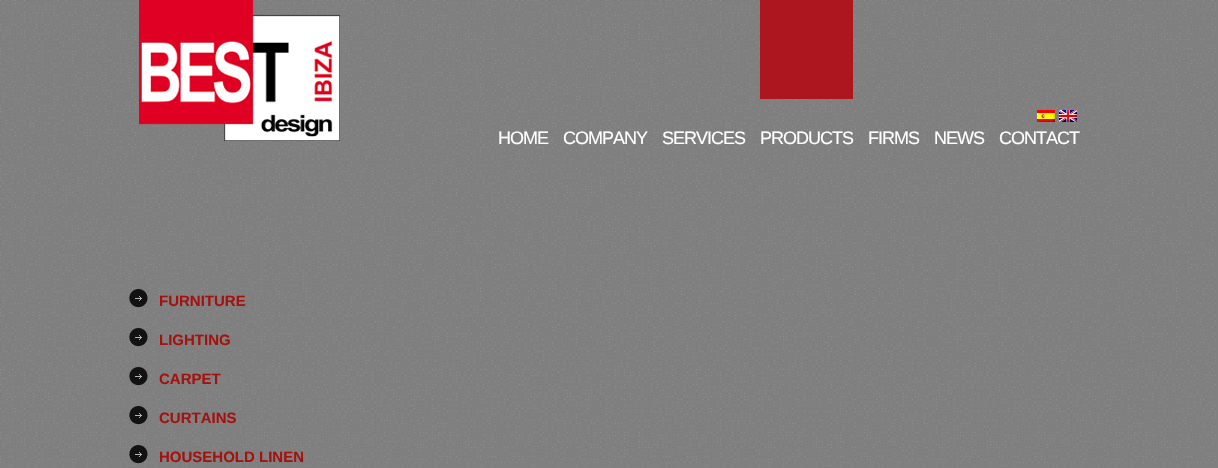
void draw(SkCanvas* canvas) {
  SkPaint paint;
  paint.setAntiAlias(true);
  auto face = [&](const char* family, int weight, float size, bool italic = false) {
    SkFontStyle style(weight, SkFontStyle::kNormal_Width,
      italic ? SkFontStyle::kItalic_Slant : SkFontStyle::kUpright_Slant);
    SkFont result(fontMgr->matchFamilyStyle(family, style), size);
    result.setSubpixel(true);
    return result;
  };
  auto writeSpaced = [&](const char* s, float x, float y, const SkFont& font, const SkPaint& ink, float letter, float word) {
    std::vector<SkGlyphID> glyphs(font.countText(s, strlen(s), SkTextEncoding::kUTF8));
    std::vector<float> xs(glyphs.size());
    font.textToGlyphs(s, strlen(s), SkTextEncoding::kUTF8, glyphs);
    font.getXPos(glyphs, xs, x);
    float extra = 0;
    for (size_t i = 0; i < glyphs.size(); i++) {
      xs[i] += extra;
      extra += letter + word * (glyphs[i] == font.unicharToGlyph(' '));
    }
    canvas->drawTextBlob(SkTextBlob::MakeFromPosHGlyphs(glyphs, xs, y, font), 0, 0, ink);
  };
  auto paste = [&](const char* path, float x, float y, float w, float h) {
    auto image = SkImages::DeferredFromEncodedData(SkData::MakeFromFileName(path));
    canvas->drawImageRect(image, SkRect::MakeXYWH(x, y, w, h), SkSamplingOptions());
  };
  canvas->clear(0xffffffff);
  paste("img/1.png", 0, 0, 1218, 468);
  paste("img/2.png", 139, 0, 201, 141);
  paste("img/3.png", 1037, 110, 18, 12);
  paste("img/4.png", 1059, 110, 18, 12);
  paint.setColor(0xffad151f);
  canvas->drawRect(SkRect::MakeXYWH(760, 0, 93, 99), paint);
  paste("img/5.png", 129, 289, 19, 19);
  paste("img/6.png", 129, 328, 19, 19);
  paste("img/7.png", 129, 367, 19, 19);
  paste("img/8.png", 129, 406, 19, 19);
  paste("img/9.png", 129, 445, 19, 19);
  auto f0 = face("Liberation Sans", 400, 18);
  paint.setColor(0xffffffff);
  {
    const struct { const char* s; float x, y; } items[] = {
      {"HOME", 498, 144},
      {"COMPANY", 563, 144},
      {"SERVICES", 662, 144},
      {"PRODUCTS", 760, 144},
      {"FIRMS", 868, 144},
      {"NEWS", 934, 144},
      {"CONTACT", 999, 144},
    };
    for (auto [s, x, y] : items) {
      writeSpaced(s, x, y, f0, paint, -1, 0);
    }
  }
  auto f1 = face("Liberation Sans", 700, 15);
  paint.setColor(0xffa4110e);
  {
    const struct { const char* s; float x, y; } items[] = {
      {"FURNITURE", 159, 306},
      {"LIGHTING", 159, 345},
      {"CARPET", 159, 384},
      {"CURTAINS", 159, 423},
      {"HOUSEHOLD LINEN", 159, 462},
    };
    for (auto [s, x, y] : items) {
      canvas->drawString(s, x, y, f1, paint);
    }
  }
}
